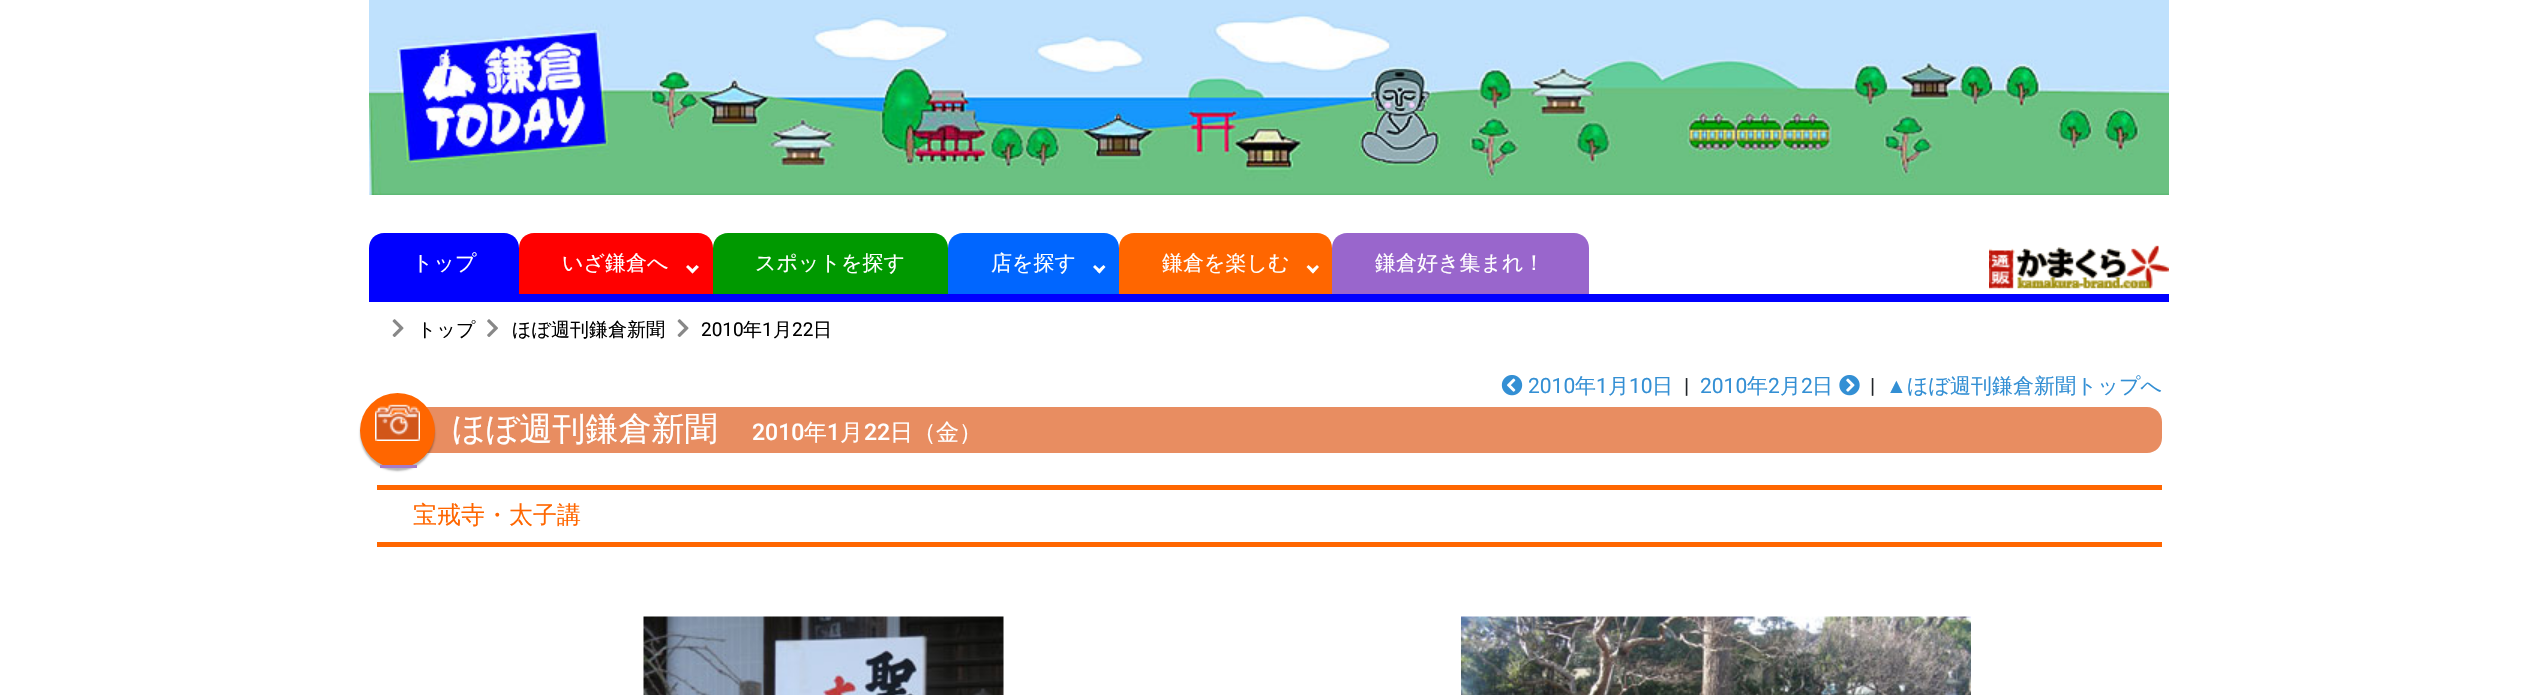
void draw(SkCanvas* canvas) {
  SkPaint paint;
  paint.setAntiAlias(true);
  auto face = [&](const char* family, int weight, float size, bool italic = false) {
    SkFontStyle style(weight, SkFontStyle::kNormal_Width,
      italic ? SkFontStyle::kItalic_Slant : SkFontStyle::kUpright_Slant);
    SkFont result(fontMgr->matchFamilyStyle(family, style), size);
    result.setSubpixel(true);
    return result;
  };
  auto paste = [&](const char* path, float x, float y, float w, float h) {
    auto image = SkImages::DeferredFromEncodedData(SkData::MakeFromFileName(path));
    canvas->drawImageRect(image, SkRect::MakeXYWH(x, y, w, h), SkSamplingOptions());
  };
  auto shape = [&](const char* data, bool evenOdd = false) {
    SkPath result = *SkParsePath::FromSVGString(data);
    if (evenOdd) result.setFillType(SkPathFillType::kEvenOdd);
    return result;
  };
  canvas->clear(0xffffffff);
  paste("img/1.png", 369, 0, 1800, 195);
  paint.setColor(0xff0000ff);
  canvas->drawRect(SkRect::MakeXYWH(369, 294, 1800, 8), paint);
  canvas->drawPath(shape("M384 233H504C512.5 233 519 239.5 519 248V294H369V248C369 239.5 375.5 233 384 233Z"), paint);
  paint.setColor(0xffff0000);
  canvas->drawPath(shape("M534 233H698C706.5 233 713 239.5 713 248V294H519V248C519 239.5 525.5 233 534 233Z"), paint);
  paint.setColor(0xffffffff);
  canvas->drawPath(shape("M699 267L692.5 273.5L690.5 271L696.5 265Z"), paint);
  canvas->drawPath(shape("M694.5 271L692.5 273.5L686 267L688 265Z"), paint);
  paint.setColor(0xff009900);
  canvas->drawPath(shape("M728 233H933C941.5 233 948 239.5 948 248V294H713V248C713 239.5 719.5 233 728 233Z"), paint);
  paint.setColor(0xff0066ff);
  canvas->drawPath(shape("M963 233H1104C1112.5 233 1119 239.5 1119 248V294H948V248C948 239.5 954.5 233 963 233Z"), paint);
  paint.setColor(0xffffffff);
  canvas->drawPath(shape("M1105.5 267L1099.5 273.5L1097 271L1103.5 265Z"), paint);
  canvas->drawPath(shape("M1101.5 271L1099.5 273.5L1093 267L1095 265Z"), paint);
  paint.setColor(0xffff6600);
  canvas->drawPath(shape("M1134 233H1317C1325.5 233 1332 239.5 1332 248V294H1119V248C1119 239.5 1125.5 233 1134 233Z"), paint);
  paint.setColor(0xffffffff);
  canvas->drawPath(shape("M1319 267L1313 273.5L1310.5 271L1317 265Z"), paint);
  canvas->drawPath(shape("M1315 271L1313 273.5L1306.5 267L1308.5 265Z"), paint);
  paint.setColor(0xff9966cc);
  canvas->drawPath(shape("M1347 233H1574C1582.5 233 1589 239.5 1589 248V294H1332V248C1332 239.5 1338.5 233 1347 233Z"), paint);
  paste("img/2.png", 1989, 245, 180, 44);
  paste("img/3.png", 392, 319, 12, 18);
  paste("img/4.png", 487, 319, 11, 18);
  paste("img/3.png", 677, 319, 12, 18);
  paste("img/5.png", 1501, 375, 22, 21);
  paste("img/6.png", 1839, 375, 21, 21);
  paint.setColor(0xffe88d61);
  canvas->drawPath(shape("M377 407H2147C2155.5 407 2162 413.5 2162 422V438C2162 446.5 2155.5 453 2147 453H377Z"), paint);
  paint.setColor(0x4a000000);
  paint.setMaskFilter(SkMaskFilter::MakeBlur(kNormal_SkBlurStyle, 1));
  canvas->drawRoundRect(SkRect::MakeXYWH(360, 396, 75, 75), 37.5f, 37.5f, paint);
  paint.setMaskFilter(nullptr);
  paint.setColor(0xffff6600);
  canvas->drawCircle(397.5f, 430.5f, 37.5f, paint);
  paint.setColor(0xffa47bc8);
  canvas->drawRect(SkRect::MakeXYWH(380, 465, 37, 3), paint);
  paste("img/7.png", 375, 404, 45, 37);
  paint.setColor(0xffff6600);
  canvas->drawRect(SkRect::MakeXYWH(377, 485, 1785, 5), paint);
  canvas->drawRect(SkRect::MakeXYWH(377, 542, 1785, 5), paint);
  paste("img/8.png", 643, 616, 361, 79);
  paste("img/9.png", 1461, 616, 510, 79);
  auto f0 = face("WenQuanYi Zen Hei", 500, 21);
  paint.setColor(0xffffffff);
  {
    const struct { const char* s; float x, y; } items[] = {
      {"トップ", 412, 270},
      {"いざ鎌倉へ", 562, 270},
      {"スポットを探す", 755, 270},
      {"店を探す", 991, 270},
      {"鎌倉を楽しむ", 1162, 270},
      {"鎌倉好き集まれ！", 1375, 270},
    };
    for (auto [s, x, y] : items) {
      canvas->drawString(s, x, y, f0, paint);
    }
  }
  auto f1 = face("WenQuanYi Zen Hei", 500, 19);
  paint.setColor(0xff000000);
  canvas->drawString("トップ", 417, 336, f1, paint);
  canvas->drawString("ほぼ週刊鎌倉新聞", 512, 336, f1, paint);
  auto f2 = face("Roboto", 400, 19);
  canvas->drawString("2010", 701, 336, f2, paint);
  canvas->drawString("年", 743, 336, f1, paint);
  canvas->drawString("1", 762, 336, f2, paint);
  canvas->drawString("月", 773, 336, f1, paint);
  canvas->drawString("22", 792, 336, f2, paint);
  canvas->drawString("日", 813, 336, f1, paint);
  auto f3 = face("Roboto", 400, 21);
  paint.setColor(0xff338fd4);
  canvas->drawString("2010", 1528, 393, f3, paint);
  canvas->drawString("年", 1575, 393, f0, paint);
  canvas->drawString("1", 1596, 393, f3, paint);
  canvas->drawString("月", 1608, 393, f0, paint);
  canvas->drawString("10", 1629, 393, f3, paint);
  canvas->drawString("日", 1652, 393, f0, paint);
  paint.setColor(0xff212529);
  canvas->drawString("|", 1684, 393, f3, paint);
  paint.setColor(0xff338fd4);
  canvas->drawString("2010", 1700, 393, f3, paint);
  canvas->drawString("年", 1747, 393, f0, paint);
  canvas->drawString("2", 1768, 393, f3, paint);
  canvas->drawString("月", 1780, 393, f0, paint);
  canvas->drawString("2", 1801, 393, f3, paint);
  canvas->drawString("日", 1812, 393, f0, paint);
  paint.setColor(0xff212529);
  canvas->drawString("|", 1870, 393, f3, paint);
  auto f4 = face("Liberation Sans", 400, 21);
  paint.setColor(0xff338fd4);
  canvas->drawString("▲", 1886, 393, f4, paint);
  canvas->drawString("ほぼ週刊鎌倉新聞トップへ", 1907, 393, f0, paint);
  auto f5 = face("WenQuanYi Zen Hei", 500, 33);
  paint.setColor(0xffffffff);
  canvas->drawString("ほぼ週刊鎌倉新聞", 452, 440, f5, paint);
  auto f6 = face("Roboto", 500, 23);
  canvas->drawString("2010", 752, 440, f6, paint);
  auto f7 = face("WenQuanYi Zen Hei", 500, 23);
  canvas->drawString("年", 804, 440, f7, paint);
  canvas->drawString("1", 827, 440, f6, paint);
  canvas->drawString("月", 840, 440, f7, paint);
  canvas->drawString("22", 864, 440, f6, paint);
  canvas->drawString("日（金）", 890, 440, f7, paint);
  auto f8 = face("WenQuanYi Zen Hei", 500, 24);
  paint.setColor(0xffff6600);
  canvas->drawString("宝戒寺・太子講", 413, 523, f8, paint);
}
